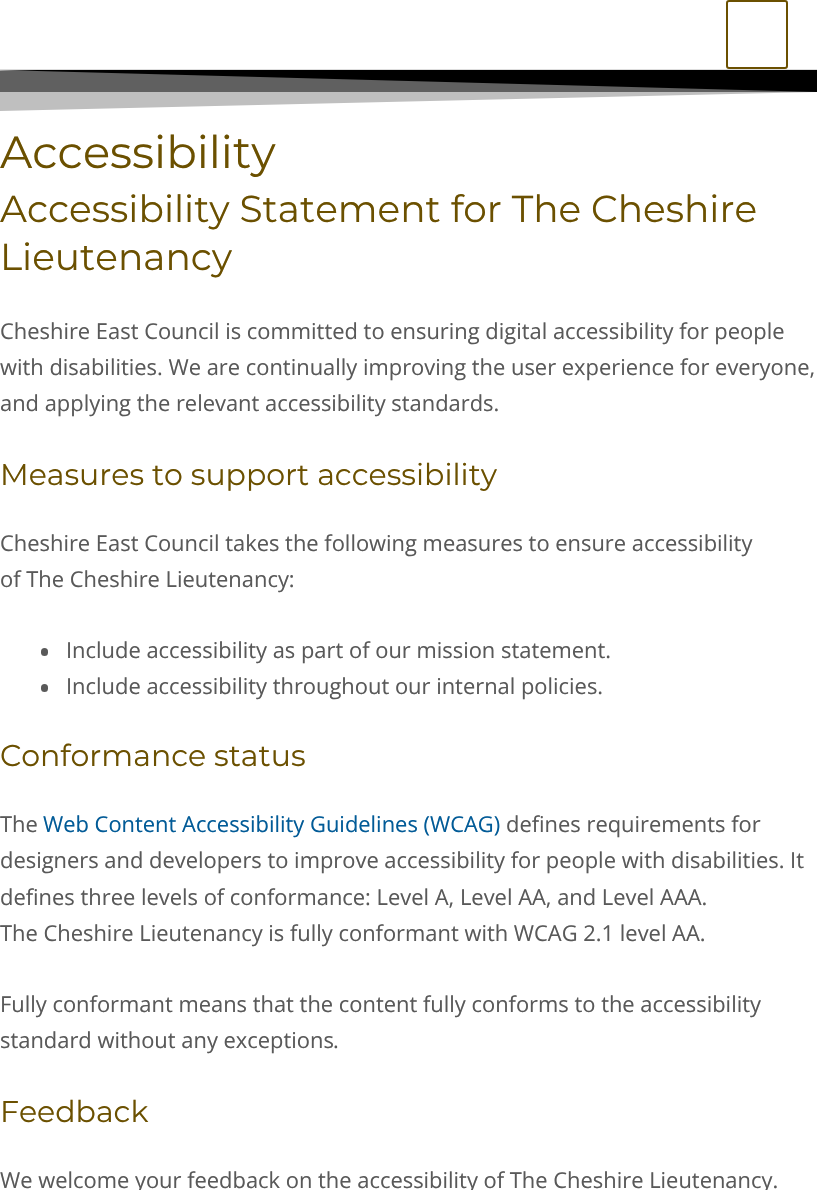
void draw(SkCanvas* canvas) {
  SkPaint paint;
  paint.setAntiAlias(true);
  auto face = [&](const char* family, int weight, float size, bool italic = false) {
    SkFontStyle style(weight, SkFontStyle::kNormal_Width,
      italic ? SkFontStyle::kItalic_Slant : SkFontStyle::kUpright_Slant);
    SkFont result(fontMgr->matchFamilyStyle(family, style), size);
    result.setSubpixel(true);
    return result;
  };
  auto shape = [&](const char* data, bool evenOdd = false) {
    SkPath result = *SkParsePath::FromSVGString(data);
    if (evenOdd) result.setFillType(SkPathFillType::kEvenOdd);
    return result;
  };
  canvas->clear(0xffffffff);
  paint.setColor(0xff808080);
  canvas->drawRect(SkRect::MakeXYWH(0, 71, 816, 21), paint);
  paint.setColor(0xffdddddd);
  canvas->drawRect(SkRect::MakeXYWH(0, 69, 817, 2), paint);
  paint.setStroke(true);
  paint.setStrokeWidth(2);
  paint.setColor(0xff6b5000);
  canvas->drawRoundRect(SkRect::MakeXYWH(727, 1, 60, 67), 2, 2, paint);
  paint.setStroke(false);
  paint.setColor(0xff000000);
  canvas->drawPath(shape("M0 70H817V92Z"), paint);
  paint.setColor(0x40000000);
  canvas->drawPath(shape("M817 70H0V111L817 92Z"), paint);
  paint.setColor(0xff595959);
  canvas->drawRoundRect(SkRect::MakeXYWH(41, 648, 7, 8), 3.5f, 3.5f, paint);
  canvas->drawRoundRect(SkRect::MakeXYWH(41, 684, 7, 8), 3.5f, 3.5f, paint);
  auto f0 = face("Montserrat", 100, 45);
  paint.setColor(0xff6b5000);
  canvas->drawString("Accessibility", 0, 168, f0, paint);
  auto f1 = face("Montserrat", 100, 37.5f);
  canvas->drawString("Accessibility Statement for The Cheshire", 0, 222, f1, paint);
  canvas->drawString("Lieutenancy", 0, 270, f1, paint);
  auto f2 = face("Open Sans", 400, 21.9f);
  paint.setColor(0xff595959);
  {
    const struct { const char* s; float x, y; } items[] = {
      {"Cheshire East Council is committed to ensuring digital accessibility for people", 0, 339},
      {"with disabilities. We are continually improving the user experience for everyone,", 0, 375},
      {"and applying the relevant accessibility standards.", 0, 411},
    };
    for (auto [s, x, y] : items) {
      canvas->drawString(s, x, y, f2, paint);
    }
  }
  auto f3 = face("Montserrat", 100, 30);
  paint.setColor(0xff6b5000);
  canvas->drawString("Measures to support accessibility", 0, 485, f3, paint);
  paint.setColor(0xff595959);
  {
    const struct { const char* s; float x, y; } items[] = {
      {"Cheshire East Council takes the following measures to ensure accessibility", 0, 551},
      {"of The Cheshire Lieutenancy:", 0, 587},
      {"Include accessibility as part of our mission statement.", 66, 658},
      {"Include accessibility throughout our internal policies.", 66, 694},
    };
    for (auto [s, x, y] : items) {
      canvas->drawString(s, x, y, f2, paint);
    }
  }
  paint.setColor(0xff6b5000);
  canvas->drawString("Conformance status", 0, 766, f3, paint);
  paint.setColor(0xff595959);
  canvas->drawString("The", 0, 832, f2, paint);
  paint.setColor(0xff025b97);
  canvas->drawString("Web Content Accessibility Guidelines (WCAG)", 43, 832, f2, paint);
  paint.setColor(0xff595959);
  {
    const struct { const char* s; float x, y; } items[] = {
      {"defines requirements for", 506, 832},
      {"designers and developers to improve accessibility for people with disabilities. It", 0, 868},
      {"defines three levels of conformance: Level A, Level AA, and Level AAA.", 0, 905},
      {"The Cheshire Lieutenancy is fully conformant with WCAG 2.1 level AA.", 0, 941},
      {"Fully conformant means that the content fully conforms to the accessibility", 0, 1012},
      {"standard without any exceptions", 0, 1048},
      {".", 333, 1048},
    };
    for (auto [s, x, y] : items) {
      canvas->drawString(s, x, y, f2, paint);
    }
  }
  paint.setColor(0xff6b5000);
  canvas->drawString("Feedback", 0, 1122, f3, paint);
  paint.setColor(0xff595959);
  canvas->drawString("We welcome your feedback on the accessibility of The Cheshire Lieutenancy.", 0, 1188, f2, paint);
}
